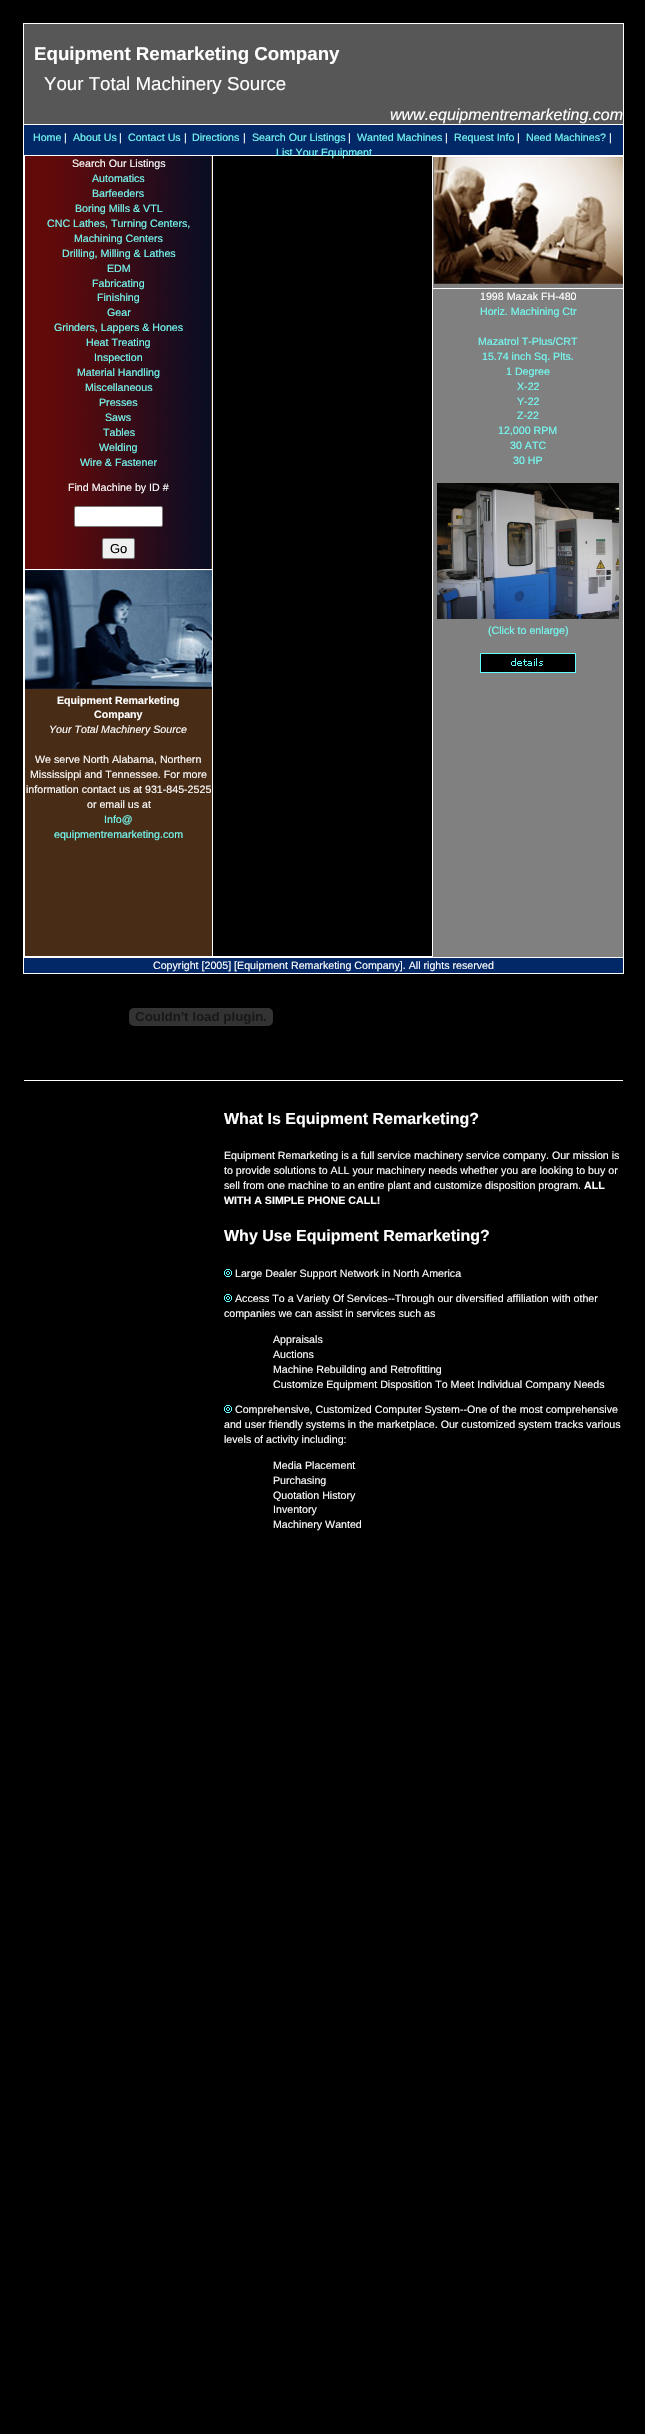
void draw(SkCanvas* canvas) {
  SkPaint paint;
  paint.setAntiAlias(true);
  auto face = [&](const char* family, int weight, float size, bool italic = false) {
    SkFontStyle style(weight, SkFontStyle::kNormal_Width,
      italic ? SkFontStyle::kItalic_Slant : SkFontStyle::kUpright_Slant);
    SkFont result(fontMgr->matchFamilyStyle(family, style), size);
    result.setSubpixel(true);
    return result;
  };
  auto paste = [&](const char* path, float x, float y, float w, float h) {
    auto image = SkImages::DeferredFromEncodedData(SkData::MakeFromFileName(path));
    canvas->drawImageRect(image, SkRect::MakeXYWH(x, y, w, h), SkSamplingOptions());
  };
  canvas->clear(0xff000000);
  paint.setColor(0xff565756);
  canvas->drawRect(SkRect::MakeXYWH(23.5f, 23.5f, 600, 101), paint);
  paint.setStroke(true);
  paint.setStrokeWidth(1);
  paint.setColor(0xffffffff);
  canvas->drawRect(SkRect::MakeXYWH(23.5f, 23.5f, 600, 101), paint);
  paint.setStroke(false);
  {
    const struct { float x, y, w, h; SkColor color; } items[] = {
      {24, 125, 599, 30, 0xff022868},
      {623, 125, 1, 832, 0xffffffff},
      {23, 155, 601, 1, 0xffffffff},
      {23, 125, 1, 832, 0xffffffff},
      {213, 956, 411, 1, 0xffffffff},
      {25, 156, 187, 800, 0xff492c16},
      {212, 156, 1, 801, 0xffffffff},
      {24, 956, 189, 1, 0xffffffff},
      {24, 156, 1, 801, 0xffffffff},
    };
    for (auto [x, y, w, h, color] : items) {
      paint.setColor(color);
      canvas->drawRect(SkRect::MakeXYWH(x, y, w, h), paint);
    }
  }
  paste("img/1.png", 25, 156, 186, 413);
  canvas->drawRect(SkRect::MakeXYWH(25, 569, 187, 1), paint);
  canvas->drawRoundRect(SkRect::MakeXYWH(74.5f, 506.5f, 88, 20), 1.5f, 1.5f, paint);
  paint.setStroke(true);
  paint.setColor(0xff767676);
  canvas->drawRoundRect(SkRect::MakeXYWH(74.5f, 506.5f, 88, 20), 1.5f, 1.5f, paint);
  paint.setStroke(false);
  paint.setColor(0xffefefef);
  canvas->drawRoundRect(SkRect::MakeXYWH(102.5f, 538.5f, 32, 20), 1.5f, 1.5f, paint);
  paint.setStroke(true);
  paint.setColor(0xff767676);
  canvas->drawRoundRect(SkRect::MakeXYWH(102.5f, 538.5f, 32, 20), 1.5f, 1.5f, paint);
  paste("img/2.png", 25, 570, 187, 119);
  paint.setStroke(false);
  paint.setColor(0xff808080);
  canvas->drawRect(SkRect::MakeXYWH(433, 157, 190, 800), paint);
  paint.setColor(0xffffffff);
  canvas->drawRect(SkRect::MakeXYWH(432, 156, 191, 1), paint);
  paint.setColor(0xff022868);
  canvas->drawRect(SkRect::MakeXYWH(23.5f, 957.5f, 600, 16), paint);
  paint.setStroke(true);
  paint.setColor(0xffffffff);
  canvas->drawRect(SkRect::MakeXYWH(23.5f, 957.5f, 600, 16), paint);
  paint.setStroke(false);
  canvas->drawRect(SkRect::MakeXYWH(432, 156, 1, 802), paint);
  canvas->drawRect(SkRect::MakeXYWH(433, 288, 190, 1), paint);
  paste("img/3.png", 434, 157, 189, 127);
  paste("img/4.png", 437, 483, 182, 136);
  paste("img/5.png", 480, 653, 96, 20);
  paste("img/6.png", 129, 1008, 144, 18);
  canvas->drawRect(SkRect::MakeXYWH(24, 1080, 599, 1), paint);
  paste("img/7.png", 224, 1269, 8, 8);
  paste("img/7.png", 224, 1294, 8, 8);
  paste("img/7.png", 224, 1405, 8, 8);
  auto f0 = face("Liberation Sans", 700, 18.7f);
  canvas->drawString("Equipment Remarketing Company", 34, 60, f0, paint);
  auto f1 = face("Liberation Sans", 400, 18.7f);
  canvas->drawString("Your Total Machinery Source", 44, 90, f1, paint);
  auto f2 = face("Liberation Sans", 400, 16, true);
  canvas->drawString("www.equipmentremarketing.com", 390, 120, f2, paint);
  auto f3 = face("Liberation Sans", 400, 10.65f);
  paint.setColor(0xff75fbf3);
  canvas->drawString("Home", 33, 141, f3, paint);
  paint.setColor(0xffffffff);
  canvas->drawString("|", 64, 141, f3, paint);
  paint.setColor(0xff75fbf3);
  canvas->drawString("About Us", 73, 141, f3, paint);
  paint.setColor(0xffffffff);
  canvas->drawString("|", 119, 141, f3, paint);
  paint.setColor(0xff75fbf3);
  canvas->drawString("Contact Us", 128, 141, f3, paint);
  paint.setColor(0xffffffff);
  canvas->drawString("|", 184, 141, f3, paint);
  paint.setColor(0xff75fbf3);
  canvas->drawString("Directions", 192, 141, f3, paint);
  paint.setColor(0xffffffff);
  canvas->drawString("|", 243, 141, f3, paint);
  paint.setColor(0xff75fbf3);
  canvas->drawString("Search Our Listings", 252, 141, f3, paint);
  paint.setColor(0xffffffff);
  canvas->drawString("|", 348, 141, f3, paint);
  paint.setColor(0xff75fbf3);
  canvas->drawString("Wanted Machines", 357, 141, f3, paint);
  paint.setColor(0xffffffff);
  canvas->drawString("|", 445, 141, f3, paint);
  paint.setColor(0xff75fbf3);
  canvas->drawString("Request Info", 454, 141, f3, paint);
  paint.setColor(0xffffffff);
  canvas->drawString("|", 517, 141, f3, paint);
  paint.setColor(0xff75fbf3);
  canvas->drawString("Need Machines?", 526, 141, f3, paint);
  paint.setColor(0xffffffff);
  canvas->drawString("|", 609, 141, f3, paint);
  paint.setColor(0xff75fbf3);
  canvas->drawString("List Your Equipment", 276, 156, f3, paint);
  paint.setColor(0xffffffff);
  canvas->drawString("Search Our Listings", 72, 167, f3, paint);
  paint.setColor(0xff75fbf3);
  {
    const struct { const char* s; float x, y; } items[] = {
      {"Automatics", 92, 182},
      {"Barfeeders", 92, 197},
      {"Boring Mills & VTL", 75, 212},
      {"CNC Lathes, Turning Centers,", 47, 227},
      {"Machining Centers", 74, 242},
      {"Drilling, Milling & Lathes", 62, 257},
      {"EDM", 107, 272},
      {"Fabricating", 92, 287},
      {"Finishing", 97, 301},
      {"Gear", 107, 316},
      {"Grinders, Lappers & Hones", 54, 331},
      {"Heat Treating", 86, 346},
      {"Inspection", 94, 361},
      {"Material Handling", 77, 376},
      {"Miscellaneous", 85, 391},
      {"Presses", 99, 406},
      {"Saws", 105, 421},
      {"Tables", 103, 436},
      {"Welding", 99, 451},
      {"Wire & Fastener", 80, 466},
    };
    for (auto [s, x, y] : items) {
      canvas->drawString(s, x, y, f3, paint);
    }
  }
  paint.setColor(0xffffffff);
  canvas->drawString("Find Machine by ID #", 68, 491, f3, paint);
  auto f4 = face("Liberation Sans", 400, 13);
  paint.setColor(0xff000000);
  canvas->drawString("Go", 110, 553, f4, paint);
  auto f5 = face("Liberation Sans", 700, 10.65f);
  paint.setColor(0xffffffff);
  canvas->drawString("Equipment Remarketing", 57, 704, f5, paint);
  canvas->drawString("Company", 94, 718, f5, paint);
  auto f6 = face("Liberation Sans", 400, 10.65f, true);
  canvas->drawString("Your Total Machinery Source", 49, 733, f6, paint);
  {
    const struct { const char* s; float x, y; } items[] = {
      {"We serve North Alabama, Northern", 35, 763},
      {"Mississippi and Tennessee. For more", 30, 778},
      {"information contact us at 931-845-2525", 26, 793},
      {"or email us at", 87, 808},
    };
    for (auto [s, x, y] : items) {
      canvas->drawString(s, x, y, f3, paint);
    }
  }
  paint.setColor(0xff75fbf3);
  canvas->drawString("Info@", 104, 823, f3, paint);
  canvas->drawString("equipmentremarketing.com", 54, 838, f3, paint);
  paint.setColor(0xffffffff);
  canvas->drawString("1998 Mazak FH-480", 480, 300, f3, paint);
  paint.setColor(0xff75fbf3);
  {
    const struct { const char* s; float x, y; } items[] = {
      {"Horiz. Machining Ctr", 480, 315},
      {"Mazatrol T-Plus/CRT", 478, 345},
      {"15.74 inch Sq. Plts.", 482, 360},
      {"1 Degree", 506, 375},
      {"X-22", 517, 390},
      {"Y-22", 517, 405},
      {"Z-22", 517, 419},
      {"12,000 RPM", 498, 434},
      {"30 ATC", 510, 449},
      {"30 HP", 513, 464},
      {"(Click to enlarge)", 488, 634},
    };
    for (auto [s, x, y] : items) {
      canvas->drawString(s, x, y, f3, paint);
    }
  }
  auto f7 = face("Liberation Sans", 700, 16);
  paint.setColor(0xffffffff);
  canvas->drawString("What Is Equipment Remarketing?", 224, 1124, f7, paint);
  {
    const struct { const char* s; float x, y; } items[] = {
      {"Equipment Remarketing is a full service machinery service company. Our mission is", 224, 1159},
      {"to provide solutions to ALL your machinery needs whether you are looking to buy or", 224, 1174},
      {"sell from one machine to an entire plant and customize disposition program.", 224, 1189},
    };
    for (auto [s, x, y] : items) {
      canvas->drawString(s, x, y, f3, paint);
    }
  }
  canvas->drawString("ALL", 584, 1189, f5, paint);
  canvas->drawString("WITH A SIMPLE PHONE CALL!", 224, 1204, f5, paint);
  canvas->drawString("Why Use Equipment Remarketing?", 224, 1241, f7, paint);
  {
    const struct { const char* s; float x, y; } items[] = {
      {"Large Dealer Support Network in North America", 235, 1277},
      {"Access To a Variety Of Services--Through our diversified affiliation with other", 235, 1302},
      {"companies we can assist in services such as", 224, 1317},
      {"Appraisals", 273, 1343},
      {"Auctions", 273, 1358},
      {"Machine Rebuilding and Retrofitting", 273, 1373},
      {"Customize Equipment Disposition To Meet Individual Company Needs", 273, 1388},
      {"Comprehensive, Customized Computer System--One of the most comprehensive", 235, 1413},
      {"and user friendly systems in the marketplace. Our customized system tracks various", 224, 1428},
      {"levels of activity including:", 224, 1443},
      {"Media Placement", 273, 1469},
      {"Purchasing", 273, 1484},
      {"Quotation History", 273, 1499},
      {"Inventory", 273, 1513},
      {"Machinery Wanted", 273, 1528},
      {"Copyright [2005] [Equipment Remarketing Company]. All rights reserved", 153, 969},
    };
    for (auto [s, x, y] : items) {
      canvas->drawString(s, x, y, f3, paint);
    }
  }
}
